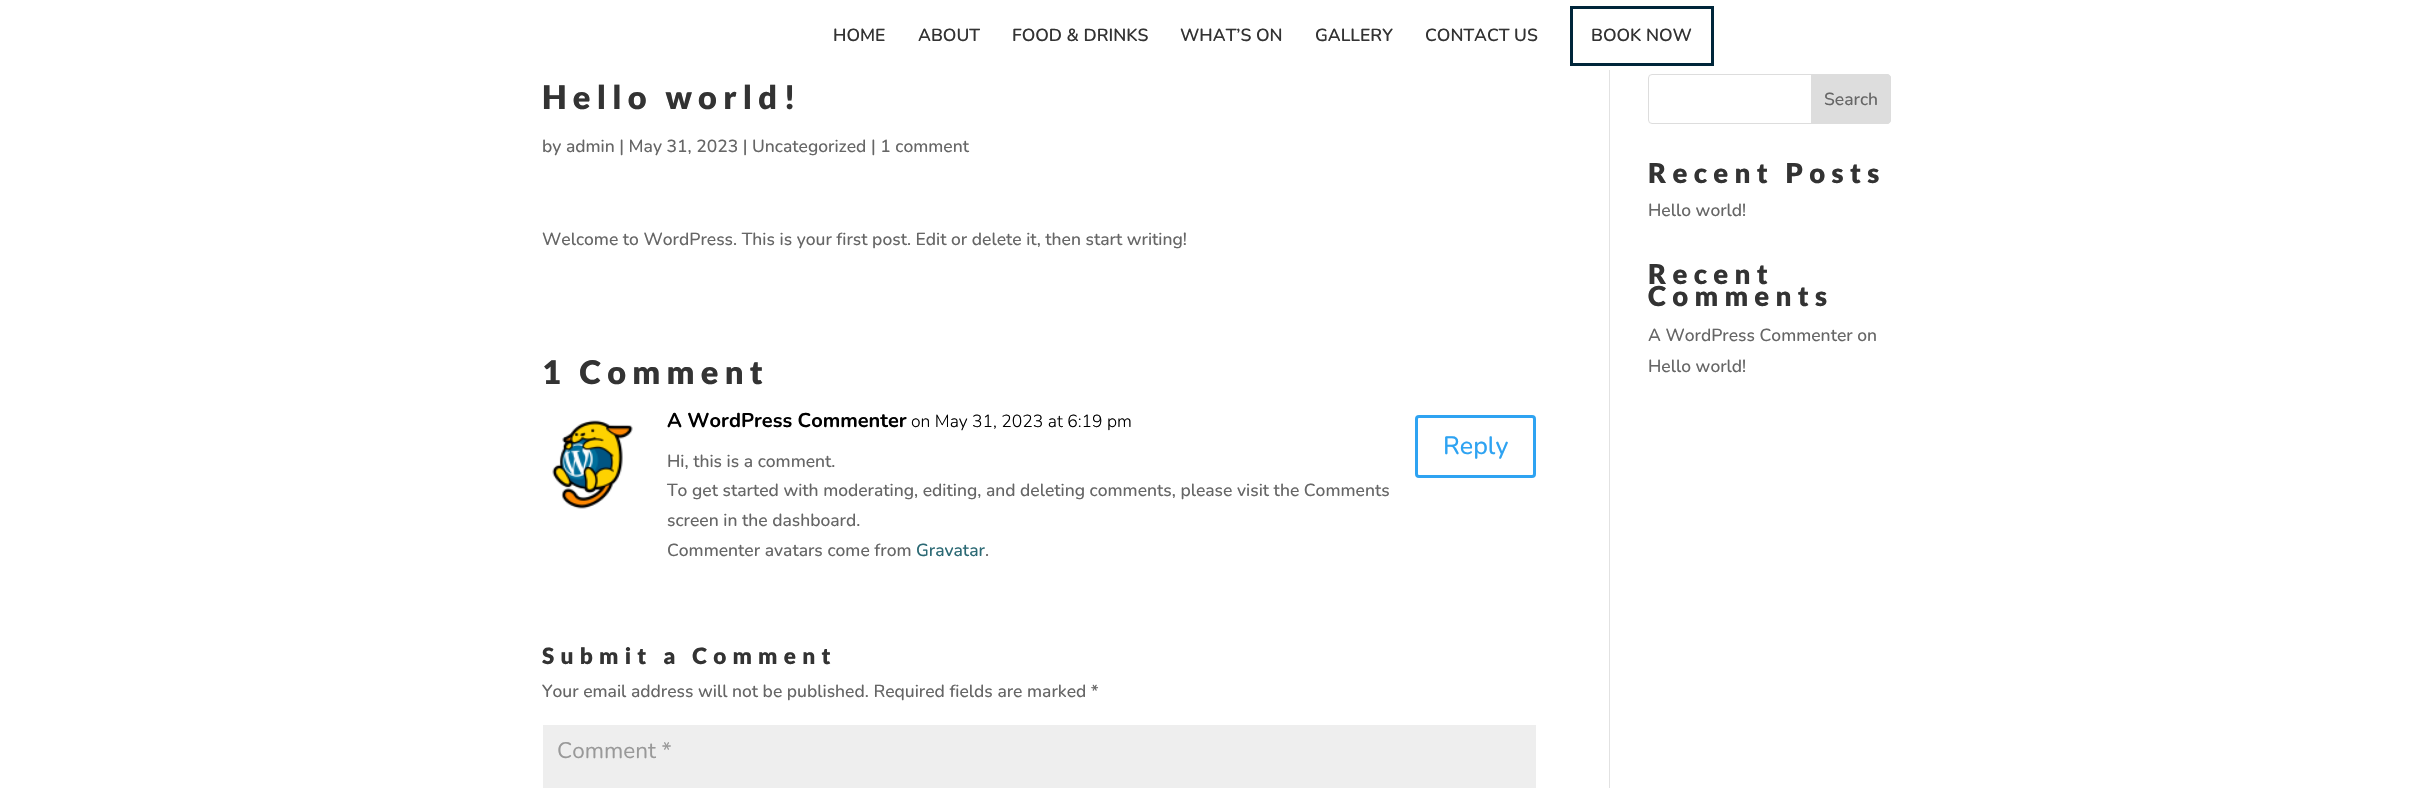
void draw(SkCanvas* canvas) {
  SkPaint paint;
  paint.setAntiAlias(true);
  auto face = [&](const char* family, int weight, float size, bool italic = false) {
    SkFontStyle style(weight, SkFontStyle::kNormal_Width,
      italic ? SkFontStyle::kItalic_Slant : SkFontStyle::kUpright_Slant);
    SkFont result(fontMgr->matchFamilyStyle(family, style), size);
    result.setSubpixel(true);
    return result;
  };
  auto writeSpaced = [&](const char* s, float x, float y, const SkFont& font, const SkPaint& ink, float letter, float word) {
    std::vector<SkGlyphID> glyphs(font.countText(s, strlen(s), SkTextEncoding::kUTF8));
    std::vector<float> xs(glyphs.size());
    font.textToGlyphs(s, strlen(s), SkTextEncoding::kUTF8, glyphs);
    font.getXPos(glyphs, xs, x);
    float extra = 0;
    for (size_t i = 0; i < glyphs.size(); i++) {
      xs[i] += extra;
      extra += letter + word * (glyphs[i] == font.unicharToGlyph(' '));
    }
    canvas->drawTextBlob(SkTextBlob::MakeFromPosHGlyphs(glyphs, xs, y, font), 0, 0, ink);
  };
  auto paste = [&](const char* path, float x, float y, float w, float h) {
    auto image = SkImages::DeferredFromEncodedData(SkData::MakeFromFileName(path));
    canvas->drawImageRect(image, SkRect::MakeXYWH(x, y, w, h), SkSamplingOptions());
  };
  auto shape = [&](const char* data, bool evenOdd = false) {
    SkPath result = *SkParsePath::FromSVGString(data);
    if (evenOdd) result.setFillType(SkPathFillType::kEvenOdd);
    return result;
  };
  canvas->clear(0xffffffff);
  paint.setStroke(true);
  paint.setStrokeWidth(3);
  paint.setColor(0xff00263a);
  canvas->drawRect(SkRect::MakeXYWH(1571.5f, 7.5f, 141, 57), paint);
  paint.setStroke(false);
  paint.setColor(0xffe2e2e2);
  canvas->drawRect(SkRect::MakeXYWH(1609, 70, 1, 718), paint);
  paste("img/1.png", 552, 420, 81, 89);
  paint.setStroke(true);
  paint.setColor(0xff2ea3f2);
  canvas->drawRoundRect(SkRect::MakeXYWH(1416.5f, 416.5f, 118, 60), 2.5f, 2.5f, paint);
  paint.setStroke(false);
  paint.setColor(0xffeeeeee);
  canvas->drawRect(SkRect::MakeXYWH(543, 725, 993, 63), paint);
  paint.setStroke(true);
  paint.setStrokeWidth(1);
  paint.setColor(0xffdddddd);
  canvas->drawRoundRect(SkRect::MakeXYWH(1648.5f, 74.5f, 242, 49), 3.5f, 3.5f, paint);
  paint.setStroke(false);
  canvas->drawPath(shape("M1811.5 74.5H1887C1889 74.5 1890.5 76 1890.5 78V120C1890.5 122 1889 123.5 1887 123.5H1811.5Z"), paint);
  paint.setStroke(true);
  canvas->drawPath(shape("M1811.5 74.5H1887C1889 74.5 1890.5 76 1890.5 78V120C1890.5 122 1889 123.5 1887 123.5H1811.5Z"), paint);
  auto f0 = face("Nunito", 600, 17.5f);
  paint.setStroke(false);
  paint.setColor(0xff333333);
  {
    const struct { const char* s; float x, y; } items[] = {
      {"HOME", 833, 41},
      {"ABOUT", 918, 41},
      {"FOOD & DRINKS", 1012, 41},
      {"WHAT’S ON", 1180, 41},
      {"GALLERY", 1315, 41},
      {"CONTACT US", 1425, 41},
      {"BOOK NOW", 1591, 41},
    };
    for (auto [s, x, y] : items) {
      canvas->drawString(s, x, y, f0, paint);
    }
  }
  auto f1 = face("Lato", 900, 32.5f);
  writeSpaced("Hello world!", 542, 109, f1, paint, 6.25f, 0);
  auto f2 = face("Nunito", 500, 17.5f);
  paint.setColor(0xff666666);
  canvas->drawString("by admin | May 31, 2023 | Uncategorized | 1 comment", 542, 152, f2, paint);
  canvas->drawString("Welcome to WordPress. This is your first post. Edit or delete it, then start writing!", 542, 245, f2, paint);
  paint.setColor(0xff333333);
  writeSpaced("1 Comment", 542, 384, f1, paint, 6.25f, 0);
  auto f3 = face("Nunito", 700, 20);
  paint.setColor(0xff000000);
  canvas->drawString("A WordPress Commenter", 667, 427, f3, paint);
  auto f4 = face("Nunito", 300, 17.5f);
  canvas->drawString("on May 31, 2023 at 6:19 pm", 911, 427, f4, paint);
  auto f5 = face("Nunito", 500, 25);
  paint.setColor(0xff2ea3f2);
  canvas->drawString("Reply", 1443, 454, f5, paint);
  paint.setColor(0xff666666);
  {
    const struct { const char* s; float x, y; } items[] = {
      {"Hi, this is a comment.", 667, 467},
      {"To get started with moderating, editing, and deleting comments, please visit the Comments", 667, 496},
      {"screen in the dashboard.", 667, 526},
      {"Commenter avatars come from", 667, 556},
    };
    for (auto [s, x, y] : items) {
      canvas->drawString(s, x, y, f2, paint);
    }
  }
  paint.setColor(0xff2b6974);
  canvas->drawString("Gravatar", 916, 556, f2, paint);
  paint.setColor(0xff666666);
  canvas->drawString(".", 985, 556, f2, paint);
  auto f6 = face("Lato", 900, 22.5f);
  paint.setColor(0xff333333);
  writeSpaced("Submit a Comment", 542, 664, f6, paint, 6.25f, 0);
  paint.setColor(0xff666666);
  canvas->drawString("Your email address will not be published. Required fields are marked *", 542, 697, f2, paint);
  auto f7 = face("Nunito", 400, 22.5f);
  paint.setColor(0xff999999);
  canvas->drawString("Comment *", 557, 758, f7, paint);
  paint.setColor(0xff666666);
  canvas->drawString("Search", 1824, 105, f2, paint);
  auto f8 = face("Lato", 900, 27.5f);
  paint.setColor(0xff333333);
  writeSpaced("Recent Posts", 1648, 183, f8, paint, 6.25f, 0);
  paint.setColor(0xff666666);
  canvas->drawString("Hello world!", 1648, 216, f2, paint);
  paint.setColor(0xff333333);
  writeSpaced("Recent", 1648, 284, f8, paint, 6.25f, 0);
  writeSpaced("Comments", 1648, 306, f8, paint, 6.25f, 0);
  paint.setColor(0xff666666);
  canvas->drawString("A WordPress Commenter on", 1648, 341, f2, paint);
  canvas->drawString("Hello world!", 1648, 372, f2, paint);
}
